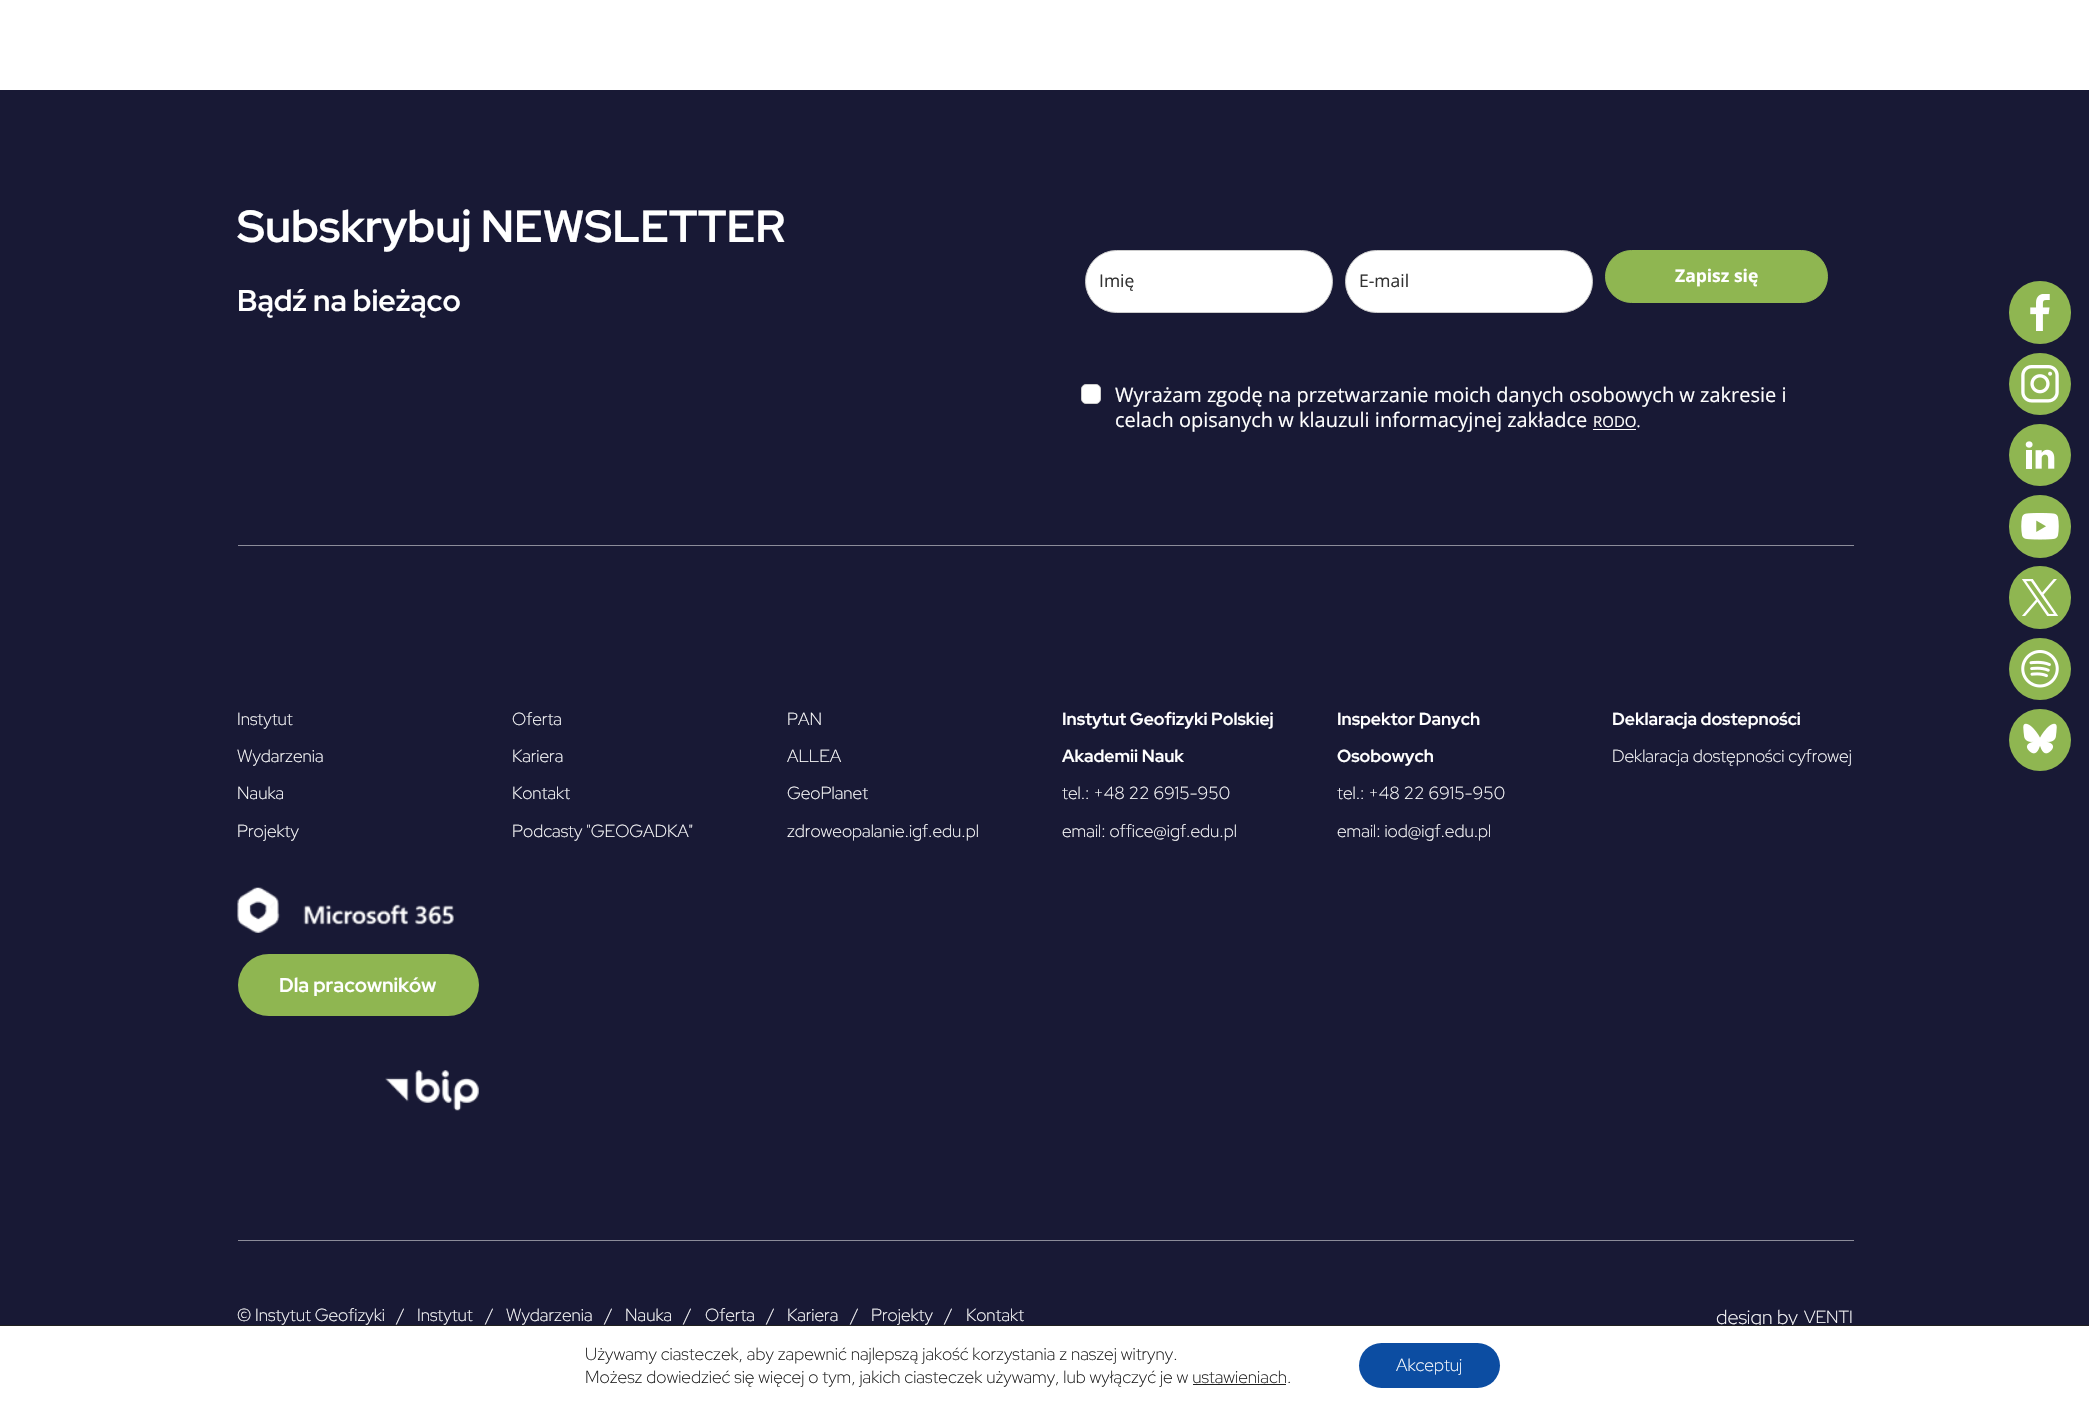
void draw(SkCanvas* canvas) {
  SkPaint paint;
  paint.setAntiAlias(true);
  auto face = [&](const char* family, int weight, float size, bool italic = false) {
    SkFontStyle style(weight, SkFontStyle::kNormal_Width,
      italic ? SkFontStyle::kItalic_Slant : SkFontStyle::kUpright_Slant);
    SkFont result(fontMgr->matchFamilyStyle(family, style), size);
    result.setSubpixel(true);
    return result;
  };
  auto paste = [&](const char* path, float x, float y, float w, float h) {
    auto image = SkImages::DeferredFromEncodedData(SkData::MakeFromFileName(path));
    canvas->drawImageRect(image, SkRect::MakeXYWH(x, y, w, h), SkSamplingOptions());
  };
  canvas->clear(0xffffffff);
  paint.setColor(0xff181935);
  canvas->drawRect(SkRect::MakeXYWH(0, 90, 2089, 1235), paint);
  paint.setColor(0xffffffff);
  canvas->drawRoundRect(SkRect::MakeXYWH(1085.5f, 250.5f, 247, 62), 31, 31, paint);
  paint.setStroke(true);
  paint.setStrokeWidth(1);
  paint.setColor(0xffcccccc);
  canvas->drawRoundRect(SkRect::MakeXYWH(1085.5f, 250.5f, 247, 62), 31, 31, paint);
  paint.setStroke(false);
  paint.setColor(0xffffffff);
  canvas->drawRoundRect(SkRect::MakeXYWH(1345.5f, 250.5f, 247, 62), 31, 31, paint);
  paint.setStroke(true);
  paint.setColor(0xffcccccc);
  canvas->drawRoundRect(SkRect::MakeXYWH(1345.5f, 250.5f, 247, 62), 31, 31, paint);
  paint.setStroke(false);
  paint.setColor(0xff8fb651);
  canvas->drawRoundRect(SkRect::MakeXYWH(1605.5f, 250.5f, 222, 52), 26, 26, paint);
  paint.setStroke(true);
  canvas->drawRoundRect(SkRect::MakeXYWH(1605.5f, 250.5f, 222, 52), 26, 26, paint);
  paint.setStroke(false);
  paint.setColor(0xffffffff);
  canvas->drawRoundRect(SkRect::MakeXYWH(1081.5f, 384.5f, 19, 19), 4.5f, 4.5f, paint);
  paint.setStroke(true);
  paint.setColor(0xffcccccc);
  canvas->drawRoundRect(SkRect::MakeXYWH(1081.5f, 384.5f, 19, 19), 4.5f, 4.5f, paint);
  paint.setStroke(false);
  paint.setColor(0xffffffff);
  canvas->drawRect(SkRect::MakeXYWH(1593, 429, 43, 1), paint);
  paint.setColor(0xff8c8c9a);
  canvas->drawRect(SkRect::MakeXYWH(238, 545, 1616, 1), paint);
  paste("img/1.png", 237, 887, 217, 46);
  paint.setColor(0xff8fb651);
  canvas->drawRoundRect(SkRect::MakeXYWH(238, 954, 241, 62), 31, 31, paint);
  paste("img/2.png", 385, 1070, 94, 41);
  paint.setColor(0xff8c8c9a);
  canvas->drawRect(SkRect::MakeXYWH(238, 1240, 1616, 1), paint);
  paint.setColor(0xff202020);
  canvas->drawRect(SkRect::MakeXYWH(1193, 1384, 93, 1), paint);
  paint.setColor(0xff0c4da2);
  canvas->drawRoundRect(SkRect::MakeXYWH(1359, 1343, 141, 45), 22.5f, 22.5f, paint);
  paint.setColor(0xff8fb651);
  canvas->drawRoundRect(SkRect::MakeXYWH(2009, 281, 62, 63), 31, 31, paint);
  paste("img/3.png", 2030, 294, 20, 37);
  canvas->drawCircle(2040, 384, 31, paint);
  paste("img/4.png", 2021, 365, 38, 38);
  canvas->drawCircle(2040, 455, 31, paint);
  paste("img/5.png", 2025, 441, 30, 28);
  canvas->drawRoundRect(SkRect::MakeXYWH(2009, 495, 62, 63), 31, 31, paint);
  paste("img/6.png", 2021, 513, 38, 27);
  canvas->drawRoundRect(SkRect::MakeXYWH(2009, 566, 62, 63), 31, 31, paint);
  paste("img/7.png", 2022, 579, 37, 37);
  canvas->drawCircle(2040, 669, 31, paint);
  paste("img/8.png", 2021, 650, 38, 38);
  canvas->drawCircle(2040, 740, 31, paint);
  paste("img/9.png", 2023, 723, 34, 31);
  auto f0 = face("Red Hat Display", 700, 45);
  paint.setColor(0xffffffff);
  canvas->drawString("Subskrybuj NEWSLETTER", 237, 242, f0, paint);
  auto f1 = face("Red Hat Display", 700, 30);
  canvas->drawString("Bądź na bieżąco", 237, 311, f1, paint);
  auto f2 = face("Open Sans", 400, 17.5f);
  paint.setColor(0xff333333);
  canvas->drawString("Imię", 1099, 287, f2, paint);
  canvas->drawString("E-mail", 1359, 287, f2, paint);
  auto f3 = face("Open Sans", 700, 17.5f);
  paint.setColor(0xffffffff);
  canvas->drawString("Zapisz się", 1675, 282, f3, paint);
  auto f4 = face("Open Sans", 400, 20);
  canvas->drawString("Wyrażam zgodę na przetwarzanie moich danych osobowych w zakresie i", 1115, 402, f4, paint);
  canvas->drawString("celach opisanych w klauzuli informacyjnej zakładce", 1115, 427, f4, paint);
  auto f5 = face("Open Sans", 400, 15);
  canvas->drawString("RODO.", 1593, 427, f5, paint);
  auto f6 = face("Red Hat Display", 300, 17.5f);
  {
    const struct { const char* s; float x, y; } items[] = {
      {"Instytut", 237, 725},
      {"Wydarzenia", 237, 762},
      {"Nauka", 237, 799},
      {"Projekty", 237, 837},
      {"Oferta", 512, 725},
      {"Kariera", 512, 762},
      {"Kontakt", 512, 799},
      {"Podcasty \"GEOGADKA\"", 512, 837},
      {"PAN", 787, 725},
      {"ALLEA", 787, 762},
      {"GeoPlanet", 787, 799},
      {"zdroweopalanie.igf.edu.pl", 787, 837},
    };
    for (auto [s, x, y] : items) {
      canvas->drawString(s, x, y, f6, paint);
    }
  }
  auto f7 = face("Red Hat Display", 700, 17.5f);
  canvas->drawString("Instytut Geofizyki Polskiej", 1062, 725, f7, paint);
  canvas->drawString("Akademii Nauk", 1062, 762, f7, paint);
  canvas->drawString("tel.: +48 22 6915-950", 1062, 799, f6, paint);
  canvas->drawString("email: office@igf.edu.pl", 1062, 837, f6, paint);
  canvas->drawString("Inspektor Danych", 1337, 725, f7, paint);
  canvas->drawString("Osobowych", 1337, 762, f7, paint);
  canvas->drawString("tel.: +48 22 6915-950", 1337, 799, f6, paint);
  canvas->drawString("email: iod@igf.edu.pl", 1337, 837, f6, paint);
  canvas->drawString("Deklaracja dostepności", 1612, 725, f7, paint);
  canvas->drawString("Deklaracja dostępności cyfrowej", 1612, 762, f6, paint);
  auto f8 = face("Red Hat Display", 700, 20);
  canvas->drawString("Dla pracowników", 279, 992, f8, paint);
  {
    const struct { const char* s; float x, y; } items[] = {
      {"© Instytut Geofizyki", 237, 1321},
      {"/", 397, 1321},
      {"Instytut", 417, 1321},
      {"/", 486, 1321},
      {"Wydarzenia", 506, 1321},
      {"/", 605, 1321},
      {"Nauka", 625, 1321},
      {"/", 684, 1321},
      {"Oferta", 705, 1321},
      {"/", 767, 1321},
      {"Kariera", 787, 1321},
      {"/", 851, 1321},
      {"Projekty", 871, 1321},
      {"/", 945, 1321},
      {"Kontakt", 966, 1321},
    };
    for (auto [s, x, y] : items) {
      canvas->drawString(s, x, y, f6, paint);
    }
  }
  auto f9 = face("Red Hat Display", 300, 20);
  canvas->drawString("design by", 1716, 1324, f9, paint);
  canvas->drawString("VENTI", 1804, 1323, f6, paint);
  paint.setColor(0xff202020);
  canvas->drawRect(SkRect::MakeXYWH(0, 1325, 2089, 1), paint);
  canvas->drawString("Używamy ciasteczek, aby zapewnić najlepszą jakość korzystania z naszej witryny.", 585, 1360, f6, paint);
  canvas->drawString("Możesz dowiedzieć się więcej o tym, jakich ciasteczek używamy, lub wyłączyć je w ustawieniach.", 585, 1383, f6, paint);
  paint.setColor(0xffffffff);
  canvas->drawString("Akceptuj", 1396, 1371, f6, paint);
}
